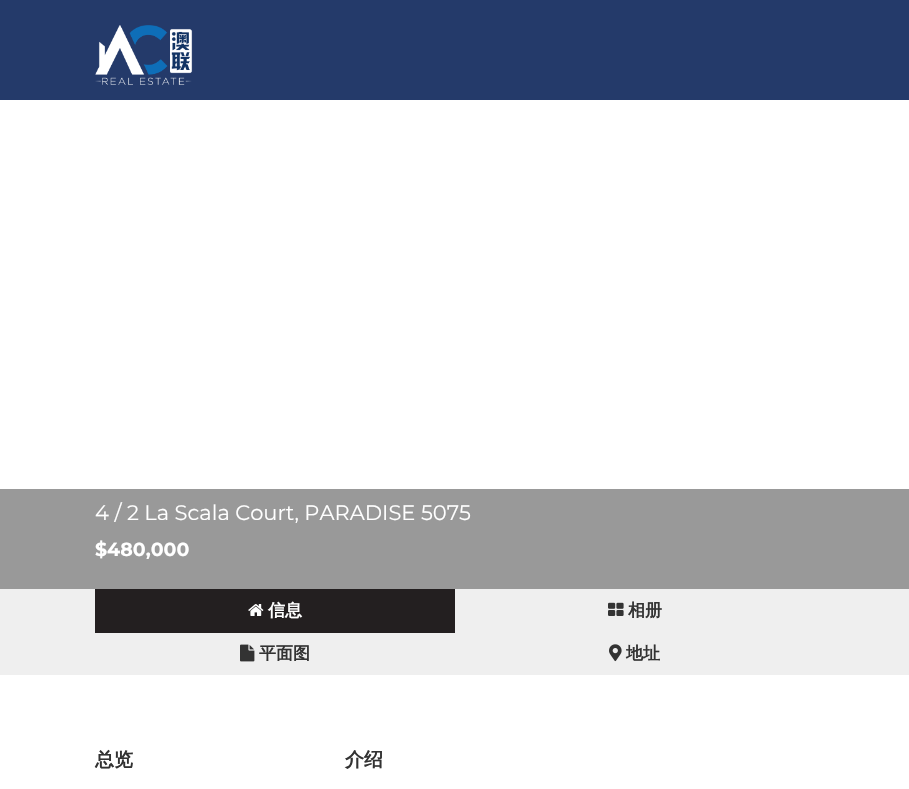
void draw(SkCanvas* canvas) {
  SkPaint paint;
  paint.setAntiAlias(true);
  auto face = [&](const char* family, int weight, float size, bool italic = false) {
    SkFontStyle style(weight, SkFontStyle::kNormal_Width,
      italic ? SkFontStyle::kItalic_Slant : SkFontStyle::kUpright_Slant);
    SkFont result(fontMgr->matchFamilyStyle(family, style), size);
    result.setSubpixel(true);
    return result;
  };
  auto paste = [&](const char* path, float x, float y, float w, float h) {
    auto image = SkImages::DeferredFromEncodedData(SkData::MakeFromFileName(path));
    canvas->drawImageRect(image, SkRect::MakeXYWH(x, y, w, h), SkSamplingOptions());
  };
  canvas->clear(0xffffffff);
  paint.setColor(0xff243a6a);
  canvas->drawRect(SkRect::MakeXYWH(0, 0, 909, 100), paint);
  paste("img/1.png", 95, 25, 98, 60);
  {
    const struct { float x, y, w, h; SkColor color; } items[] = {
      {0, 489, 909, 100, 0xff999999},
      {0, 589, 909, 86, 0xffefefef},
      {95, 589, 360, 44, 0xff231f20},
    };
    for (auto [x, y, w, h, color] : items) {
      paint.setColor(color);
      canvas->drawRect(SkRect::MakeXYWH(x, y, w, h), paint);
    }
  }
  paste("img/2.png", 248, 604, 16, 12);
  paste("img/3.png", 608, 602, 16, 14);
  paste("img/4.png", 240, 644, 15, 18);
  paste("img/5.png", 609, 644, 13, 18);
  auto f0 = face("Montserrat", 400, 21);
  paint.setColor(0xffffffff);
  canvas->drawString("4 / 2 La Scala Court, PARADISE 5075", 95, 520, f0, paint);
  auto f1 = face("Montserrat", 700, 19);
  canvas->drawString("$480,000", 95, 556, f1, paint);
  auto f2 = face("WenQuanYi Zen Hei", 700, 17);
  canvas->drawString("信息", 268, 616, f2, paint);
  paint.setColor(0xff333333);
  {
    const struct { const char* s; float x, y; } items[] = {
      {"相册", 628, 616},
      {"平面图", 259, 659},
      {"地址", 626, 659},
    };
    for (auto [s, x, y] : items) {
      canvas->drawString(s, x, y, f2, paint);
    }
  }
  auto f3 = face("WenQuanYi Zen Hei", 700, 19);
  canvas->drawString("总览", 95, 766, f3, paint);
  canvas->drawString("介绍", 345, 766, f3, paint);
}
